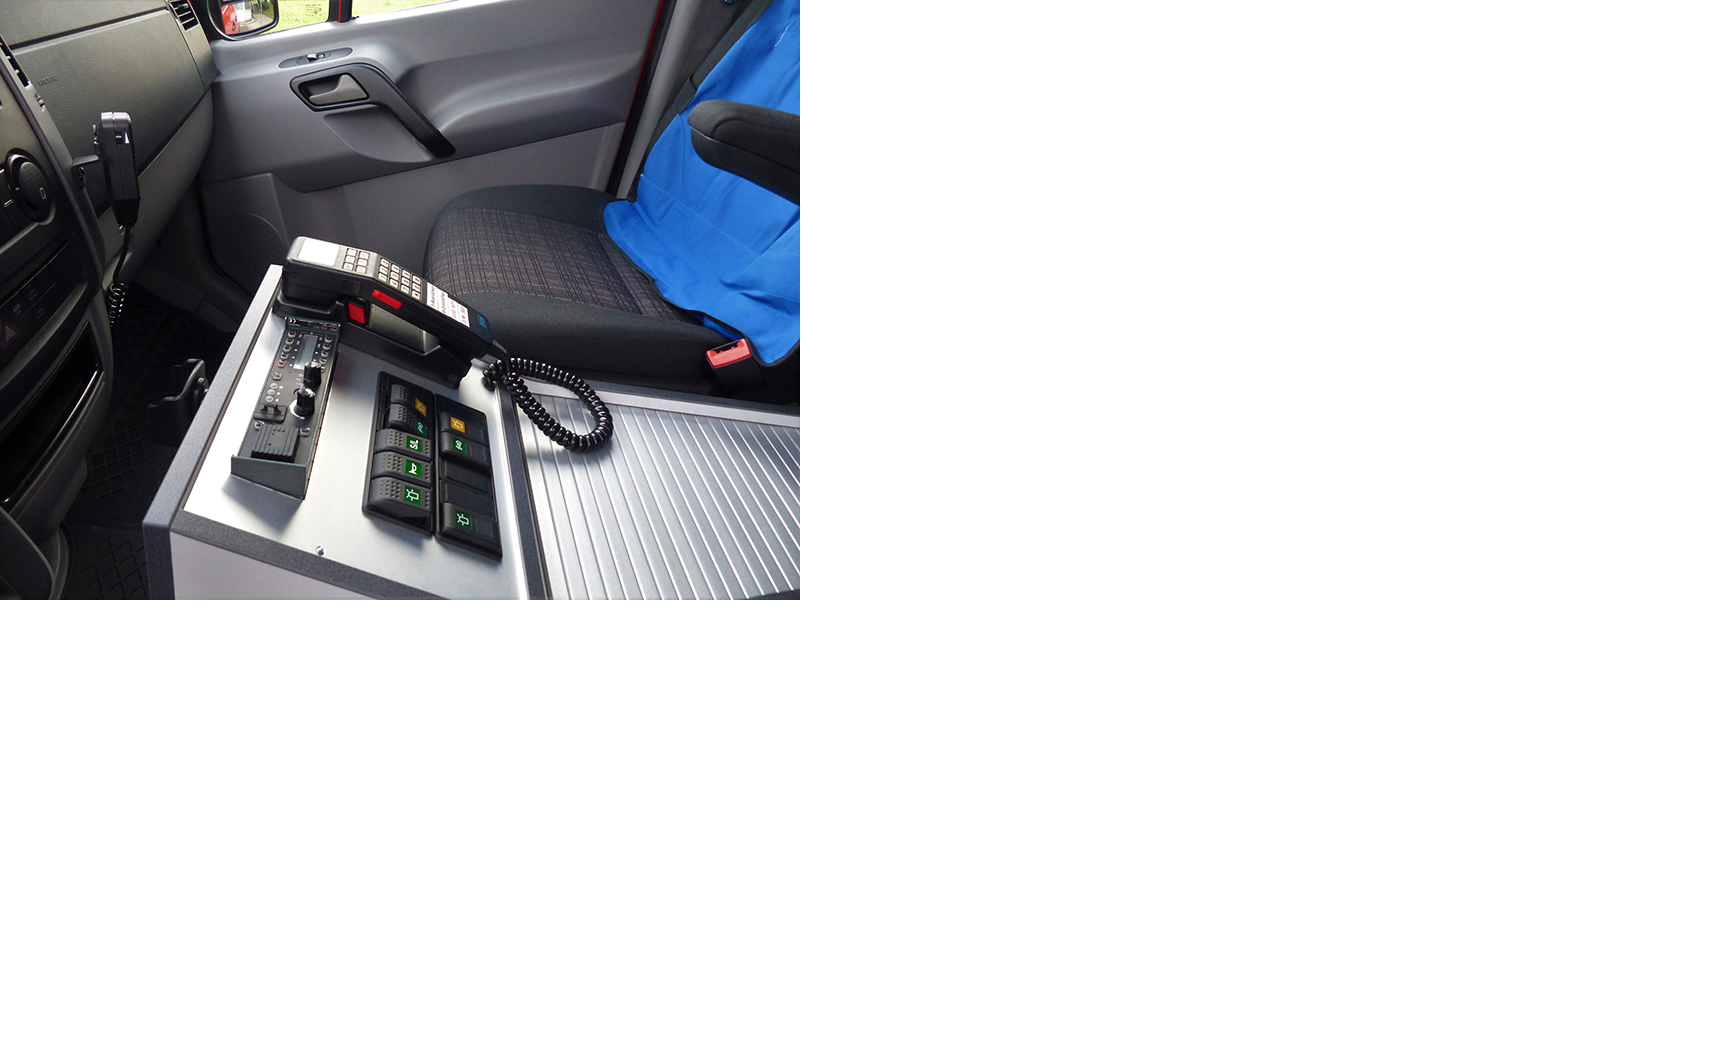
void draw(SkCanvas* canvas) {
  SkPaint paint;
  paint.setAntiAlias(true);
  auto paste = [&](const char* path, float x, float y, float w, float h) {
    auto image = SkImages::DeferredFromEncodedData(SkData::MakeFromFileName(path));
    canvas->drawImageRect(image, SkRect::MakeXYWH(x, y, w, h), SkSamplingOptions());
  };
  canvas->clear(0xffffffff);
  paste("img/1.png", 0, 0, 800, 600);
}
